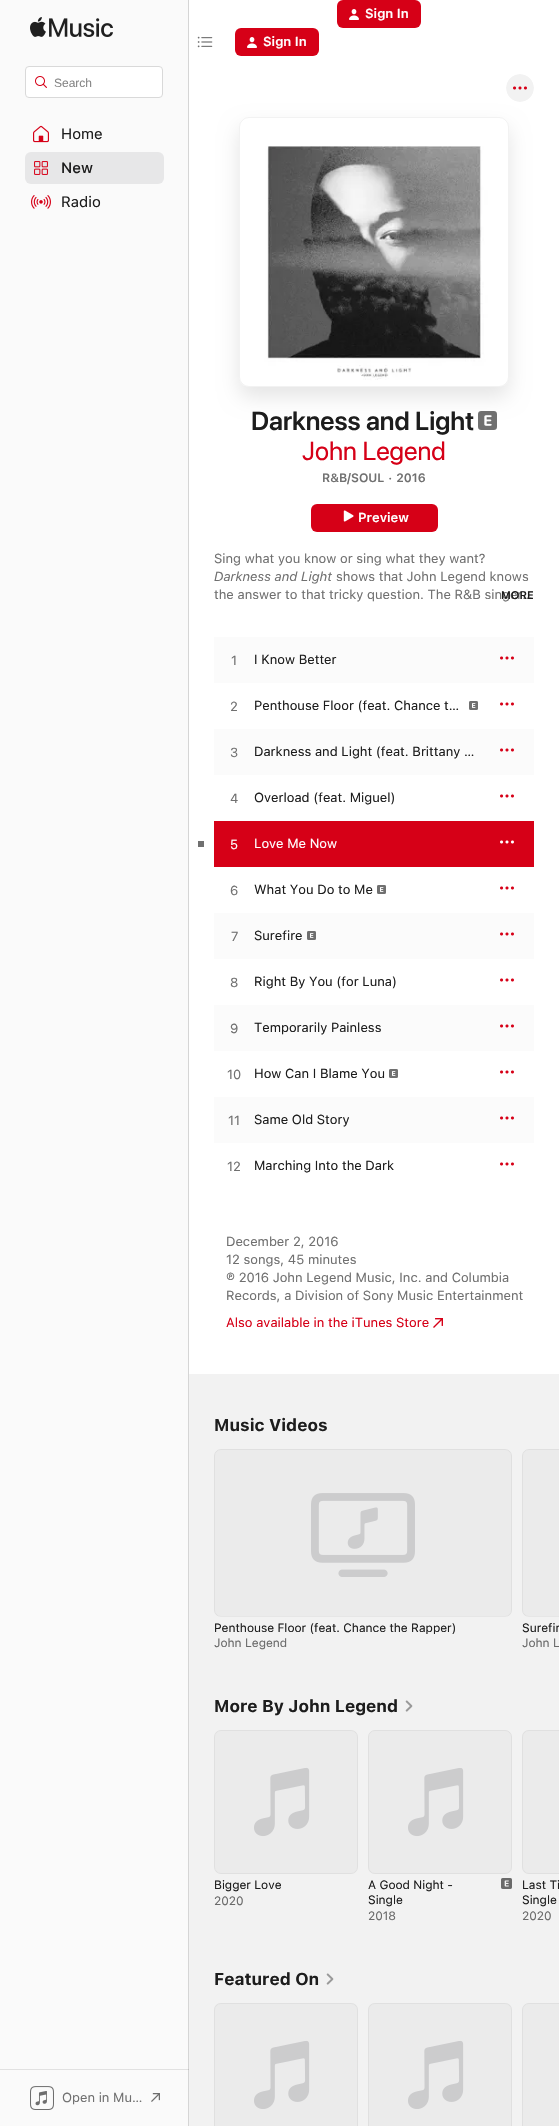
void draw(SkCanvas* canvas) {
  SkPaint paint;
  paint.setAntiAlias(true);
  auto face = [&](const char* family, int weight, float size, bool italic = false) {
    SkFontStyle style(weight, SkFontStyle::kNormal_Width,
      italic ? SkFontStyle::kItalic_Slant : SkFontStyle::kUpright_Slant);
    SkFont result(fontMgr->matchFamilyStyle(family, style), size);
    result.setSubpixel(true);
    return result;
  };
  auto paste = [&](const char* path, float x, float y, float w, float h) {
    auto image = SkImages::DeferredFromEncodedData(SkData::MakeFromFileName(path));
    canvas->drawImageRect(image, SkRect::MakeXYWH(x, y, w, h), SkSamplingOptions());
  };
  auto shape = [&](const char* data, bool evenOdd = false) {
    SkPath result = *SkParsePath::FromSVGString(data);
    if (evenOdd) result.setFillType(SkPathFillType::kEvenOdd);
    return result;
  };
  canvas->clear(0xffffffff);
  paint.setColor(0xffd60017);
  canvas->drawRoundRect(SkRect::MakeXYWH(337, 0, 84, 28), 6, 6, paint);
  paste("img/1.png", 349, 9, 10, 11);
  paste("img/2.png", 197, 36, 16, 12);
  canvas->drawRoundRect(SkRect::MakeXYWH(235, 28, 84, 28), 6, 6, paint);
  paste("img/1.png", 247, 37, 10, 11);
  {
    const struct { float x, y, w, h; SkColor color; } items[] = {
      {0, 0, 188, 2126, 0xfffafafa},
      {0, 2069, 189, 1, 0xffe1e1e1},
      {188, 0, 1, 2126, 0xffd5d5d5},
      {188, 2069, 1, 1, 0xffc0c0c0},
    };
    for (auto [x, y, w, h, color] : items) {
      paint.setColor(color);
      canvas->drawRect(SkRect::MakeXYWH(x, y, w, h), paint);
    }
  }
  paste("img/3.png", 30, 17, 83, 20);
  paint.setColor(0xffffffff);
  canvas->drawRoundRect(SkRect::MakeXYWH(25.5f, 66.5f, 137, 31), 3.5f, 3.5f, paint);
  paint.setStroke(true);
  paint.setStrokeWidth(1);
  paint.setColor(0xffd9d9d9);
  canvas->drawRoundRect(SkRect::MakeXYWH(25.5f, 66.5f, 137, 31), 3.5f, 3.5f, paint);
  paste("img/4.png", 35, 76, 12, 12);
  paste("img/5.png", 33, 125, 16, 18);
  paint.setStroke(false);
  paint.setColor(0xffe7e7e8);
  canvas->drawRoundRect(SkRect::MakeXYWH(25, 152, 139, 32), 6, 6, paint);
  paste("img/6.png", 34, 161, 14, 14);
  paste("img/7.png", 31, 195, 20, 14);
  paste("img/8.png", 30, 2086, 24, 24);
  paste("img/9.png", 151, 2093, 9, 9);
  paste("img/10.png", 506, 74, 28, 28);
  paste("img/12.png", 478, 411, 19, 19);
  canvas->save();
  canvas->clipPath(shape("M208 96H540V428H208ZM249 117H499C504.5 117 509 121.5 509 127V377C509 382.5 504.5 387 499 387H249C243.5 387 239 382.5 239 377V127C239 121.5 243.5 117 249 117Z", true), true);
  paint.setColor(0x1a000000);
  paint.setMaskFilter(SkMaskFilter::MakeBlur(kNormal_SkBlurStyle, 10));
  canvas->drawRoundRect(SkRect::MakeXYWH(239, 127, 270, 270), 10, 10, paint);
  paint.setMaskFilter(nullptr);
  canvas->restore();
  paste("img/11.png", 254, 146, 240, 241);
  paint.setStroke(true);
  paint.setColor(0x1a808080);
  canvas->drawRoundRect(SkRect::MakeXYWH(239.5f, 117.5f, 269, 269), 9.5f, 9.5f, paint);
  paint.setStroke(false);
  paint.setColor(0xffd60017);
  canvas->drawRoundRect(SkRect::MakeXYWH(311, 504, 127, 28), 6, 6, paint);
  paste("img/13.png", 343, 510, 11, 12);
  paint.setColor(0xfffbfbfb);
  canvas->drawRect(SkRect::MakeXYWH(214, 637, 320, 46), paint);
  paste("img/14.png", 500, 656, 14, 4);
  paste("img/15.png", 469, 701, 9, 9);
  paste("img/16.png", 500, 702, 14, 4);
  canvas->drawRect(SkRect::MakeXYWH(214, 729, 320, 46), paint);
  paste("img/14.png", 500, 748, 14, 4);
  paste("img/16.png", 500, 794, 14, 4);
  paint.setColor(0xffd60017);
  canvas->drawRect(SkRect::MakeXYWH(214, 821, 320, 46), paint);
  paint.setColor(0xff707070);
  canvas->drawRect(SkRect::MakeXYWH(198, 841, 6, 6), paint);
  paste("img/17.png", 500, 840, 14, 4);
  paste("img/15.png", 377, 885, 9, 9);
  paste("img/16.png", 500, 886, 14, 4);
  paint.setColor(0xfffbfbfb);
  canvas->drawRect(SkRect::MakeXYWH(214, 913, 320, 46), paint);
  paste("img/18.png", 307, 931, 9, 9);
  paste("img/14.png", 500, 932, 14, 4);
  paste("img/16.png", 500, 978, 14, 4);
  canvas->drawRect(SkRect::MakeXYWH(214, 1005, 320, 46), paint);
  paste("img/14.png", 500, 1024, 14, 4);
  paste("img/15.png", 389, 1069, 9, 9);
  paste("img/16.png", 500, 1070, 14, 4);
  canvas->drawRect(SkRect::MakeXYWH(214, 1097, 320, 46), paint);
  paste("img/14.png", 500, 1116, 14, 4);
  paste("img/16.png", 500, 1162, 14, 4);
  paste("img/19.png", 433, 1318, 10, 10);
  paint.setColor(0xfff2f2f2);
  canvas->drawRect(SkRect::MakeXYWH(189, 1374, 370, 752), paint);
  canvas->save();
  canvas->clipPath(shape("M221 1449H505C509 1449 512 1452 512 1456V1610C512 1614 509 1617 505 1617H221C217 1617 214 1614 214 1610V1456C214 1452 217 1449 221 1449Z"), true);
  paint.setColor(0xffebebeb);
  canvas->drawPath(shape("M221 1449H505C509 1449 512 1452 512 1456V1616H214V1456C214 1452 217 1449 221 1449Z"), paint);
  canvas->restore();
  paste("img/20.png", 311, 1493, 104, 84);
  paint.setStroke(true);
  paint.setColor(0x1a808080);
  canvas->drawRoundRect(SkRect::MakeXYWH(214.5f, 1449.5f, 297, 167), 6.5f, 6.5f, paint);
  canvas->save();
  canvas->clipPath(shape("M529 1449H813C817 1449 820 1452 820 1456V1610C820 1614 817 1617 813 1617H529C525 1617 522 1614 522 1610V1456C522 1452 525 1449 529 1449Z"), true);
  paint.setStroke(false);
  paint.setColor(0xffebebeb);
  canvas->drawPath(shape("M529 1449H559V1616H522V1456C522 1452 525 1449 529 1449Z"), paint);
  canvas->restore();
  paint.setStroke(true);
  paint.setColor(0x1a808080);
  canvas->drawRoundRect(SkRect::MakeXYWH(522.5f, 1449.5f, 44, 167), 6.5f, 6.5f, paint);
  paste("img/21.png", 405, 1700, 8, 12);
  paste("img/22.png", 214, 1730, 144, 144);
  canvas->drawRoundRect(SkRect::MakeXYWH(214.5f, 1730.5f, 143, 143), 6.5f, 6.5f, paint);
  paint.setStroke(false);
  paint.setColor(0xffebebeb);
  canvas->drawRoundRect(SkRect::MakeXYWH(368, 1730, 144, 144), 7, 7, paint);
  paste("img/23.png", 368, 1768, 144, 106);
  paint.setStroke(true);
  paint.setColor(0x1a808080);
  canvas->drawRoundRect(SkRect::MakeXYWH(368.5f, 1730.5f, 143, 143), 6.5f, 6.5f, paint);
  paste("img/24.png", 501, 1878, 11, 11);
  paint.setStroke(false);
  paint.setColor(0xffebebeb);
  canvas->drawPath(shape("M529 1730H559V1874H529C525 1874 522 1871 522 1867V1737C522 1733 525 1730 529 1730Z"), paint);
  paste("img/25.png", 522, 1730, 6, 144);
  paint.setStroke(true);
  paint.setColor(0x1a808080);
  canvas->drawRoundRect(SkRect::MakeXYWH(522.5f, 1730.5f, 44, 143), 6.5f, 6.5f, paint);
  paste("img/21.png", 326, 1973, 8, 12);
  paint.setStroke(false);
  paint.setColor(0xffebebeb);
  canvas->drawPath(shape("M221 2003H351C355 2003 358 2006 358 2010V2126H214V2010C214 2006 217 2003 221 2003Z"), paint);
  paste("img/26.png", 214, 2003, 144, 106);
  paint.setStroke(true);
  paint.setColor(0x1a808080);
  canvas->drawRoundRect(SkRect::MakeXYWH(214.5f, 2003.5f, 143, 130), 6.5f, 6.5f, paint);
  paint.setStroke(false);
  paint.setColor(0xffebebeb);
  canvas->drawPath(shape("M375 2003H505C509 2003 512 2006 512 2010V2126H368V2010C368 2006 371 2003 375 2003Z"), paint);
  paste("img/27.png", 368, 2003, 144, 106);
  paint.setStroke(true);
  paint.setColor(0x1a808080);
  canvas->drawRoundRect(SkRect::MakeXYWH(368.5f, 2003.5f, 143, 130), 6.5f, 6.5f, paint);
  paint.setStroke(false);
  paint.setColor(0xffebebeb);
  canvas->drawPath(shape("M529 2003H559V2126H522V2010C522 2006 525 2003 529 2003Z"), paint);
  paint.setStroke(true);
  paint.setColor(0x1a808080);
  canvas->drawRoundRect(SkRect::MakeXYWH(522.5f, 2003.5f, 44, 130), 6.5f, 6.5f, paint);
  auto f0 = face("SF", 600, 13);
  paint.setStroke(false);
  paint.setColor(0xffffffff);
  canvas->drawString("Sign In", 365, 18, f0, paint);
  canvas->drawString("Sign In", 263, 46, f0, paint);
  auto f1 = face("Liberation Sans", 400, 12);
  paint.setColor(0xff858585);
  canvas->drawString("Search", 54, 87, f1, paint);
  auto f2 = face("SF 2", 400, 15);
  paint.setColor(0xff1d1d1d);
  canvas->drawString("Home", 61, 139, f2, paint);
  auto f3 = face("SF", 500, 15);
  canvas->drawString("New", 61, 173, f3, paint);
  canvas->drawString("Radio", 61, 207, f2, paint);
  auto f4 = face("SF 2", 400, 13);
  paint.setColor(0xff707070);
  canvas->drawString("Open in Mu…", 62, 2102, f4, paint);
  auto f5 = face("SF 2", 600, 26);
  paint.setColor(0xff1d1d1d);
  canvas->drawString("Darkness and Light", 251, 430, f5, paint);
  auto f6 = face("SF", 400, 26);
  paint.setColor(0xffd60017);
  canvas->drawString("John Legend", 302, 460, f6, paint);
  auto f7 = face("SF", 600, 12);
  paint.setColor(0xff707070);
  canvas->drawString("R&B/SOUL · 2016", 322, 482, f7, paint);
  paint.setColor(0xffffffff);
  canvas->drawString("Preview", 358, 522, f0, paint);
  paint.setColor(0xff707070);
  canvas->drawString("Sing what you know or sing what they want?", 214, 563, f4, paint);
  auto f8 = face("SF", 400, 13, true);
  canvas->drawString("Darkness and Light", 214, 581, f8, paint);
  canvas->drawString("shows that John Legend knows", 336, 581, f4, paint);
  canvas->drawString("the answer to that tricky question. The R&B singer…", 214, 599, f4, paint);
  auto f9 = face("SF", 600, 11);
  paint.setColor(0xff1d1d1d);
  canvas->drawString("MORE", 501, 599, f9, paint);
  paint.setColor(0xff707070);
  canvas->drawString("1", 231, 665, f4, paint);
  paint.setColor(0xff1d1d1d);
  canvas->drawString("I Know Better", 254, 664, f4, paint);
  paint.setColor(0xff707070);
  canvas->drawString("2", 230, 711, f4, paint);
  paint.setColor(0xff1d1d1d);
  canvas->drawString("Penthouse Floor (feat. Chance t…", 254, 710, f4, paint);
  paint.setColor(0xff707070);
  canvas->drawString("3", 230, 757, f4, paint);
  paint.setColor(0xff1d1d1d);
  canvas->drawString("Darkness and Light (feat. Brittany …", 254, 756, f4, paint);
  paint.setColor(0xff707070);
  canvas->drawString("4", 230, 803, f4, paint);
  paint.setColor(0xff1d1d1d);
  canvas->drawString("Overload (feat. Miguel)", 254, 802, f4, paint);
  paint.setColor(0xffffffff);
  canvas->drawString("5", 230, 849, f4, paint);
  canvas->drawString("Love Me Now", 254, 848, f4, paint);
  paint.setColor(0xff707070);
  canvas->drawString("6", 230, 895, f4, paint);
  paint.setColor(0xff1d1d1d);
  canvas->drawString("What You Do to Me", 254, 894, f4, paint);
  paint.setColor(0xff707070);
  canvas->drawString("7", 231, 941, f4, paint);
  paint.setColor(0xff1d1d1d);
  canvas->drawString("Surefire", 254, 940, f4, paint);
  paint.setColor(0xff707070);
  canvas->drawString("8", 230, 987, f4, paint);
  paint.setColor(0xff1d1d1d);
  canvas->drawString("Right By You (for Luna)", 254, 986, f4, paint);
  paint.setColor(0xff707070);
  canvas->drawString("9", 230, 1033, f4, paint);
  paint.setColor(0xff1d1d1d);
  canvas->drawString("Temporarily Painless", 254, 1032, f4, paint);
  paint.setColor(0xff707070);
  canvas->drawString("10", 227, 1079, f4, paint);
  paint.setColor(0xff1d1d1d);
  canvas->drawString("How Can I Blame You", 254, 1078, f4, paint);
  paint.setColor(0xff707070);
  canvas->drawString("11", 228, 1125, f4, paint);
  paint.setColor(0xff1d1d1d);
  canvas->drawString("Same Old Story", 254, 1124, f4, paint);
  paint.setColor(0xff707070);
  canvas->drawString("12", 227, 1171, f4, paint);
  paint.setColor(0xff1d1d1d);
  canvas->drawString("Marching Into the Dark", 254, 1170, f4, paint);
  paint.setColor(0xff707070);
  {
    const struct { const char* s; float x, y; } items[] = {
      {"December 2, 2016", 226, 1246},
      {"12 songs, 45 minutes", 226, 1264},
      {"℗ 2016 John Legend Music, Inc. and Columbia", 226, 1282},
      {"Records, a Division of Sony Music Entertainment", 226, 1300},
    };
    for (auto [s, x, y] : items) {
      canvas->drawString(s, x, y, f4, paint);
    }
  }
  paint.setColor(0xffd60017);
  canvas->drawString("Also available in the iTunes Store", 226, 1327, f4, paint);
  auto f10 = face("SF", 700, 17);
  paint.setColor(0xff1d1d1d);
  canvas->drawString("Music Videos", 214, 1431, f10, paint);
  auto f11 = face("SF 2", 400, 12);
  canvas->drawString("Penthouse Floor (feat. Chance the Rapper)", 214, 1632, f11, paint);
  paint.setColor(0xff6a6a6a);
  canvas->drawString("John Legend", 214, 1647, f11, paint);
  paint.setColor(0xff1d1d1d);
  canvas->drawString("Surefir", 522, 1632, f11, paint);
  paint.setColor(0xff6a6a6a);
  canvas->drawString("John L", 522, 1647, f11, paint);
  paint.setColor(0xff1d1d1d);
  canvas->drawString("More By John Legend", 214, 1712, f10, paint);
  canvas->drawString("Bigger Love", 214, 1889, f11, paint);
  paint.setColor(0xff6a6a6a);
  canvas->drawString("2020", 214, 1905, f11, paint);
  paint.setColor(0xff1d1d1d);
  canvas->drawString("A Good Night -", 368, 1889, f11, paint);
  canvas->drawString("Single", 368, 1904, f11, paint);
  paint.setColor(0xff6a6a6a);
  canvas->drawString("2018", 368, 1920, f11, paint);
  paint.setColor(0xff1d1d1d);
  canvas->drawString("Last Ti", 522, 1889, f11, paint);
  canvas->drawString("Single", 522, 1904, f11, paint);
  paint.setColor(0xff6a6a6a);
  canvas->drawString("2020", 522, 1920, f11, paint);
  paint.setColor(0xff1d1d1d);
  canvas->drawString("Featured On", 214, 1985, f10, paint);
}
